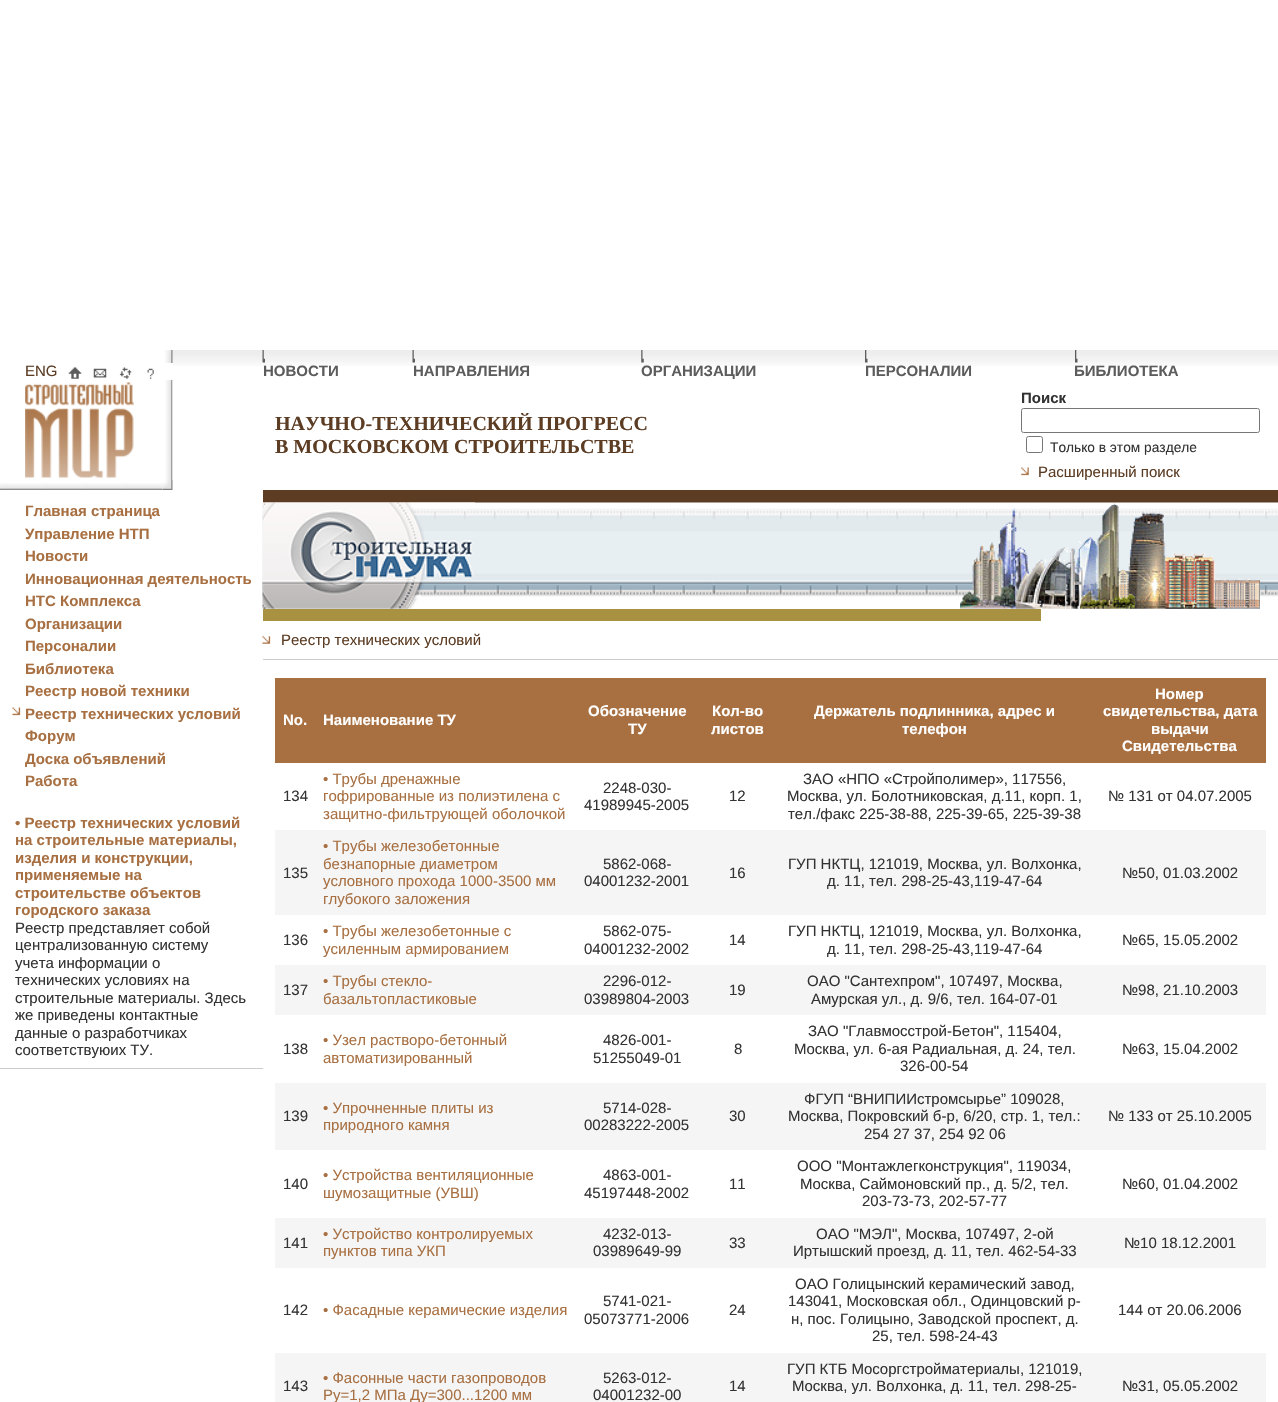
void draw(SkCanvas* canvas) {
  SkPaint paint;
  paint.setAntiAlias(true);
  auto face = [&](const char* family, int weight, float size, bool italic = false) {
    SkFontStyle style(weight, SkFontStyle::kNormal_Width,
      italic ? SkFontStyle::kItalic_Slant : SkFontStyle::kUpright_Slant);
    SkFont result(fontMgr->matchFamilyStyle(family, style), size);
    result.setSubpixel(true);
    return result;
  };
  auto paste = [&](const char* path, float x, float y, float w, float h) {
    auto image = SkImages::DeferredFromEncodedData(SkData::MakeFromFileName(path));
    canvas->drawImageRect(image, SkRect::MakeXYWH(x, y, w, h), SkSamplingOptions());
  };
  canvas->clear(0xffffffff);
  paste("img/1.png", 172, 350, 91, 16);
  paste("img/2.png", 163, 350, 10, 13);
  paint.setColor(0xffffffff);
  canvas->drawRect(SkRect::MakeXYWH(172, 363, 1, 3), paint);
  paste("img/3.png", 68, 367, 14, 12);
  paste("img/4.png", 93, 368, 14, 10);
  paste("img/5.png", 119, 367, 13, 12);
  paste("img/6.png", 147, 368, 7, 11);
  paste("img/7.png", 262, 350, 1016, 16);
  paste("img/8.png", 262, 350, 3, 13);
  paste("img/9.png", 412, 350, 3, 13);
  paste("img/10.png", 641, 350, 3, 13);
  paste("img/11.png", 865, 350, 3, 13);
  paste("img/11.png", 1075, 350, 3, 13);
  paste("img/12.png", 25, 382, 109, 96);
  paste("img/13.png", 165, 380, 8, 100);
  paste("img/14.png", 0, 483, 163, 7);
  paste("img/15.png", 162, 480, 11, 10);
  paint.setStroke(true);
  paint.setStrokeWidth(1);
  paint.setColor(0xff767676);
  canvas->drawRoundRect(SkRect::MakeXYWH(1021.5f, 408.5f, 238, 24), 2, 2, paint);
  canvas->drawRoundRect(SkRect::MakeXYWH(1026.5f, 436.5f, 16, 16), 2, 2, paint);
  paste("img/16.png", 1021, 467, 8, 9);
  paste("img/17.png", 12, 707, 9, 9);
  paint.setStroke(false);
  paint.setColor(0xffcccccc);
  canvas->drawRect(SkRect::MakeXYWH(0, 1068, 263, 1), paint);
  paint.setColor(0xff5c3d24);
  canvas->drawRect(SkRect::MakeXYWH(263, 490, 1015, 13), paint);
  paste("img/18.png", 262, 502, 1016, 95);
  paste("img/19.png", 262, 502, 213, 107);
  paste("img/20.png", 960, 503, 300, 106);
  paint.setColor(0xffa89242);
  canvas->drawRect(SkRect::MakeXYWH(263, 609, 778, 12), paint);
  paste("img/21.png", 262, 636, 9, 8);
  {
    const struct { float x, y, w, h; SkColor color; } items[] = {
      {263, 659, 1015, 1, 0xffcccccc},
      {275, 678, 991, 85, 0xffa87041},
      {275, 830, 991, 85, 0xfff5f5f5},
      {275, 965, 991, 50, 0xfff5f5f5},
      {275, 1083, 991, 67, 0xfff5f5f5},
      {275, 1218, 991, 50, 0xfff5f5f5},
      {275, 1353, 991, 49, 0xfff5f5f5},
    };
    for (auto [x, y, w, h, color] : items) {
      paint.setColor(color);
      canvas->drawRect(SkRect::MakeXYWH(x, y, w, h), paint);
    }
  }
  auto f0 = face("Liberation Sans", 400, 15);
  paint.setColor(0xff5c3d24);
  canvas->drawString("ENG", 25, 376, f0, paint);
  auto f1 = face("Liberation Sans", 700, 15);
  paint.setColor(0xff5c5c5c);
  {
    const struct { const char* s; float x, y; } items[] = {
      {"НОВОСТИ", 263, 376},
      {"НАПРАВЛЕНИЯ", 413, 376},
      {"ОРГАНИЗАЦИИ", 641, 376},
      {"ПЕРСОНАЛИИ", 865, 376},
      {"БИБЛИОТЕКА", 1074, 376},
    };
    for (auto [s, x, y] : items) {
      canvas->drawString(s, x, y, f1, paint);
    }
  }
  auto f2 = face("Liberation Serif", 700, 20);
  paint.setColor(0xff5c3d24);
  canvas->drawString("НАУЧНО-ТЕХНИЧЕСКИЙ ПРОГРЕСС", 275, 430, f2, paint);
  canvas->drawString("В МОСКОВСКОМ СТРОИТЕЛЬСТВЕ", 275, 453, f2, paint);
  paint.setColor(0xff333333);
  canvas->drawString("Поиск", 1021, 403, f1, paint);
  auto f3 = face("Liberation Sans", 400, 13.75f);
  canvas->drawString("Только в этом разделе", 1050, 452, f3, paint);
  paint.setColor(0xff5c3d24);
  canvas->drawString("Расширенный поиск", 1038, 477, f0, paint);
  paint.setColor(0xffa87042);
  {
    const struct { const char* s; float x, y; } items[] = {
      {"Главная страница", 25, 516},
      {"Управление НТП", 25, 539},
      {"Новости", 25, 561},
      {"Инновационная деятельность", 25, 584},
      {"НТС Комплекса", 25, 606},
      {"Организации", 25, 629},
      {"Персоналии", 25, 651},
      {"Библиотека", 25, 674},
      {"Реестр новой техники", 25, 696},
      {"Реестр технических условий", 25, 719},
      {"Форум", 25, 741},
      {"Доска объявлений", 25, 764},
      {"Работа", 25, 786},
      {"• Реестр технических условий", 15, 828},
      {"на строительные материалы,", 15, 845},
      {"изделия и конструкции,", 15, 863},
      {"применяемые на", 15, 880},
      {"строительстве объектов", 15, 898},
      {"городского заказа", 15, 915},
    };
    for (auto [s, x, y] : items) {
      canvas->drawString(s, x, y, f1, paint);
    }
  }
  paint.setColor(0xff333333);
  {
    const struct { const char* s; float x, y; } items[] = {
      {"Реестр представляет собой", 15, 933},
      {"централизованную систему", 15, 950},
      {"учета информации о", 15, 968},
      {"технических условиях на", 15, 985},
      {"строительные материалы. Здесь", 15, 1003},
      {"же приведены контактные", 15, 1020},
      {"данные о разработчиках", 15, 1038},
      {"соответствуюих ТУ.", 15, 1055},
    };
    for (auto [s, x, y] : items) {
      canvas->drawString(s, x, y, f0, paint);
    }
  }
  paint.setColor(0xff5c3d24);
  canvas->drawString("Реестр технических условий", 281, 645, f0, paint);
  paint.setColor(0xffffffff);
  {
    const struct { const char* s; float x, y; } items[] = {
      {"No.", 283, 725},
      {"Наименование ТУ", 323, 725},
      {"Обозначение", 588, 716},
      {"ТУ", 628, 734},
      {"Кол-во", 712, 716},
      {"листов", 711, 734},
      {"Держатель подлинника, адрес и", 814, 716},
      {"телефон", 902, 734},
      {"Номер", 1155, 699},
      {"свидетельства, дата", 1103, 716},
      {"выдачи", 1151, 734},
      {"Свидетельства", 1122, 751},
    };
    for (auto [s, x, y] : items) {
      canvas->drawString(s, x, y, f1, paint);
    }
  }
  paint.setColor(0xff333333);
  canvas->drawString("134", 283, 801, f0, paint);
  paint.setColor(0xffa87042);
  {
    const struct { const char* s; float x, y; } items[] = {
      {"• Трубы дренажные", 323, 784},
      {"гофрированные из полиэтилена с", 323, 801},
      {"защитно-фильтрующей оболочкой", 323, 819},
    };
    for (auto [s, x, y] : items) {
      canvas->drawString(s, x, y, f0, paint);
    }
  }
  paint.setColor(0xff333333);
  {
    const struct { const char* s; float x, y; } items[] = {
      {"2248-030-", 603, 793},
      {"41989945-2005", 584, 810},
      {"12", 729, 801},
      {"ЗАО «НПО «Стройполимер», 117556,", 803, 784},
      {"Москва, ул. Болотниковская, д.11, корп. 1,", 787, 801},
      {"тел./факс 225-38-88, 225-39-65, 225-39-38", 788, 819},
      {"№ 131 от 04.07.2005", 1108, 801},
      {"135", 283, 878},
    };
    for (auto [s, x, y] : items) {
      canvas->drawString(s, x, y, f0, paint);
    }
  }
  paint.setColor(0xffa87042);
  {
    const struct { const char* s; float x, y; } items[] = {
      {"• Трубы железобетонные", 323, 851},
      {"безнапорные диаметром", 323, 869},
      {"условного прохода 1000-3500 мм", 323, 886},
      {"глубокого заложения", 323, 904},
    };
    for (auto [s, x, y] : items) {
      canvas->drawString(s, x, y, f0, paint);
    }
  }
  paint.setColor(0xff333333);
  {
    const struct { const char* s; float x, y; } items[] = {
      {"5862-068-", 603, 869},
      {"04001232-2001", 584, 886},
      {"16", 729, 878},
      {"ГУП НКТЦ, 121019, Москва, ул. Волхонка,", 788, 869},
      {"д. 11, тел. 298-25-43,119-47-64", 827, 886},
      {"№50, 01.03.2002", 1122, 878},
      {"136", 283, 945},
    };
    for (auto [s, x, y] : items) {
      canvas->drawString(s, x, y, f0, paint);
    }
  }
  paint.setColor(0xffa87042);
  canvas->drawString("• Трубы железобетонные с", 323, 936, f0, paint);
  canvas->drawString("усиленным армированием", 323, 954, f0, paint);
  paint.setColor(0xff333333);
  {
    const struct { const char* s; float x, y; } items[] = {
      {"5862-075-", 603, 936},
      {"04001232-2002", 584, 954},
      {"14", 729, 945},
      {"ГУП НКТЦ, 121019, Москва, ул. Волхонка,", 788, 936},
      {"д. 11, тел. 298-25-43,119-47-64", 827, 954},
      {"№65, 15.05.2002", 1122, 945},
      {"137", 283, 995},
    };
    for (auto [s, x, y] : items) {
      canvas->drawString(s, x, y, f0, paint);
    }
  }
  paint.setColor(0xffa87042);
  canvas->drawString("• Трубы стекло-", 323, 986, f0, paint);
  canvas->drawString("базальтопластиковые", 323, 1004, f0, paint);
  paint.setColor(0xff333333);
  {
    const struct { const char* s; float x, y; } items[] = {
      {"2296-012-", 603, 986},
      {"03989804-2003", 584, 1004},
      {"19", 729, 995},
      {"ОАО \"Сантехпром\", 107497, Москва,", 807, 986},
      {"Амурская ул., д. 9/6, тел. 164-07-01", 811, 1004},
      {"№98, 21.10.2003", 1122, 995},
      {"138", 283, 1054},
    };
    for (auto [s, x, y] : items) {
      canvas->drawString(s, x, y, f0, paint);
    }
  }
  paint.setColor(0xffa87042);
  canvas->drawString("• Узел растворо-бетонный", 323, 1045, f0, paint);
  canvas->drawString("автоматизированный", 323, 1063, f0, paint);
  paint.setColor(0xff333333);
  {
    const struct { const char* s; float x, y; } items[] = {
      {"4826-001-", 603, 1045},
      {"51255049-01", 593, 1063},
      {"8", 734, 1054},
      {"ЗАО \"Главмосстрой-Бетон\", 115404,", 808, 1036},
      {"Москва, ул. 6-ая Радиальная, д. 24, тел.", 794, 1054},
      {"326-00-54", 900, 1071},
      {"№63, 15.04.2002", 1122, 1054},
      {"139", 283, 1121},
    };
    for (auto [s, x, y] : items) {
      canvas->drawString(s, x, y, f0, paint);
    }
  }
  paint.setColor(0xffa87042);
  canvas->drawString("• Упрочненные плиты из", 323, 1113, f0, paint);
  canvas->drawString("природного камня", 323, 1130, f0, paint);
  paint.setColor(0xff333333);
  {
    const struct { const char* s; float x, y; } items[] = {
      {"5714-028-", 603, 1113},
      {"00283222-2005", 584, 1130},
      {"30", 729, 1121},
      {"ФГУП “ВНИПИИcтромсырье” 109028,", 804, 1104},
      {"Москва, Покровский б-р, 6/20, стр. 1, тел.:", 788, 1121},
      {"254 27 37, 254 92 06", 864, 1139},
      {"№ 133 от 25.10.2005", 1108, 1121},
      {"140", 283, 1189},
    };
    for (auto [s, x, y] : items) {
      canvas->drawString(s, x, y, f0, paint);
    }
  }
  paint.setColor(0xffa87042);
  canvas->drawString("• Устройства вентиляционные", 323, 1180, f0, paint);
  canvas->drawString("шумозащитные (УВШ)", 323, 1198, f0, paint);
  paint.setColor(0xff333333);
  {
    const struct { const char* s; float x, y; } items[] = {
      {"4863-001-", 603, 1180},
      {"45197448-2002", 584, 1198},
      {"11", 729, 1189},
      {"ООО \"Монтажлегконструкция\", 119034,", 797, 1171},
      {"Москва, Саймоновский пр., д. 5/2, тел.", 800, 1189},
      {"203-73-73, 202-57-77", 862, 1206},
      {"№60, 01.04.2002", 1122, 1189},
      {"141", 283, 1248},
    };
    for (auto [s, x, y] : items) {
      canvas->drawString(s, x, y, f0, paint);
    }
  }
  paint.setColor(0xffa87042);
  canvas->drawString("• Устройство контролируемых", 323, 1239, f0, paint);
  canvas->drawString("пунктов типа УКП", 323, 1256, f0, paint);
  paint.setColor(0xff333333);
  {
    const struct { const char* s; float x, y; } items[] = {
      {"4232-013-", 603, 1239},
      {"03989649-99", 593, 1256},
      {"33", 729, 1248},
      {"ОАО \"МЭЛ\", Москва, 107497, 2-ой", 816, 1239},
      {"Иртышский проезд, д. 11, тел. 462-54-33", 793, 1256},
      {"№10 18.12.2001", 1124, 1248},
      {"142", 283, 1315},
    };
    for (auto [s, x, y] : items) {
      canvas->drawString(s, x, y, f0, paint);
    }
  }
  paint.setColor(0xffa87042);
  canvas->drawString("• Фасадные керамические изделия", 323, 1315, f0, paint);
  paint.setColor(0xff333333);
  {
    const struct { const char* s; float x, y; } items[] = {
      {"5741-021-", 603, 1306},
      {"05073771-2006", 584, 1324},
      {"24", 729, 1315},
      {"ОАО Голицынский керамический завод,", 795, 1289},
      {"143041, Московская обл., Одинцовский р-", 788, 1306},
      {"н, пос. Голицыно, Заводской проспект, д.", 791, 1324},
      {"25, тел. 598-24-43", 872, 1341},
      {"144 от 20.06.2006", 1118, 1315},
      {"143", 283, 1391},
    };
    for (auto [s, x, y] : items) {
      canvas->drawString(s, x, y, f0, paint);
    }
  }
  paint.setColor(0xffa87042);
  canvas->drawString("• Фасонные части газопроводов", 323, 1383, f0, paint);
  canvas->drawString("Ру=1,2 МПа Ду=300...1200 мм", 323, 1400, f0, paint);
  paint.setColor(0xff333333);
  {
    const struct { const char* s; float x, y; } items[] = {
      {"5263-012-", 603, 1383},
      {"04001232-00", 593, 1400},
      {"14", 729, 1391},
      {"ГУП КТБ Мосоргстройматериалы, 121019,", 787, 1374},
      {"Москва, ул. Волхонка, д. 11, тел. 298-25-", 792, 1391},
      {"№31, 05.05.2002", 1122, 1391},
    };
    for (auto [s, x, y] : items) {
      canvas->drawString(s, x, y, f0, paint);
    }
  }
}
